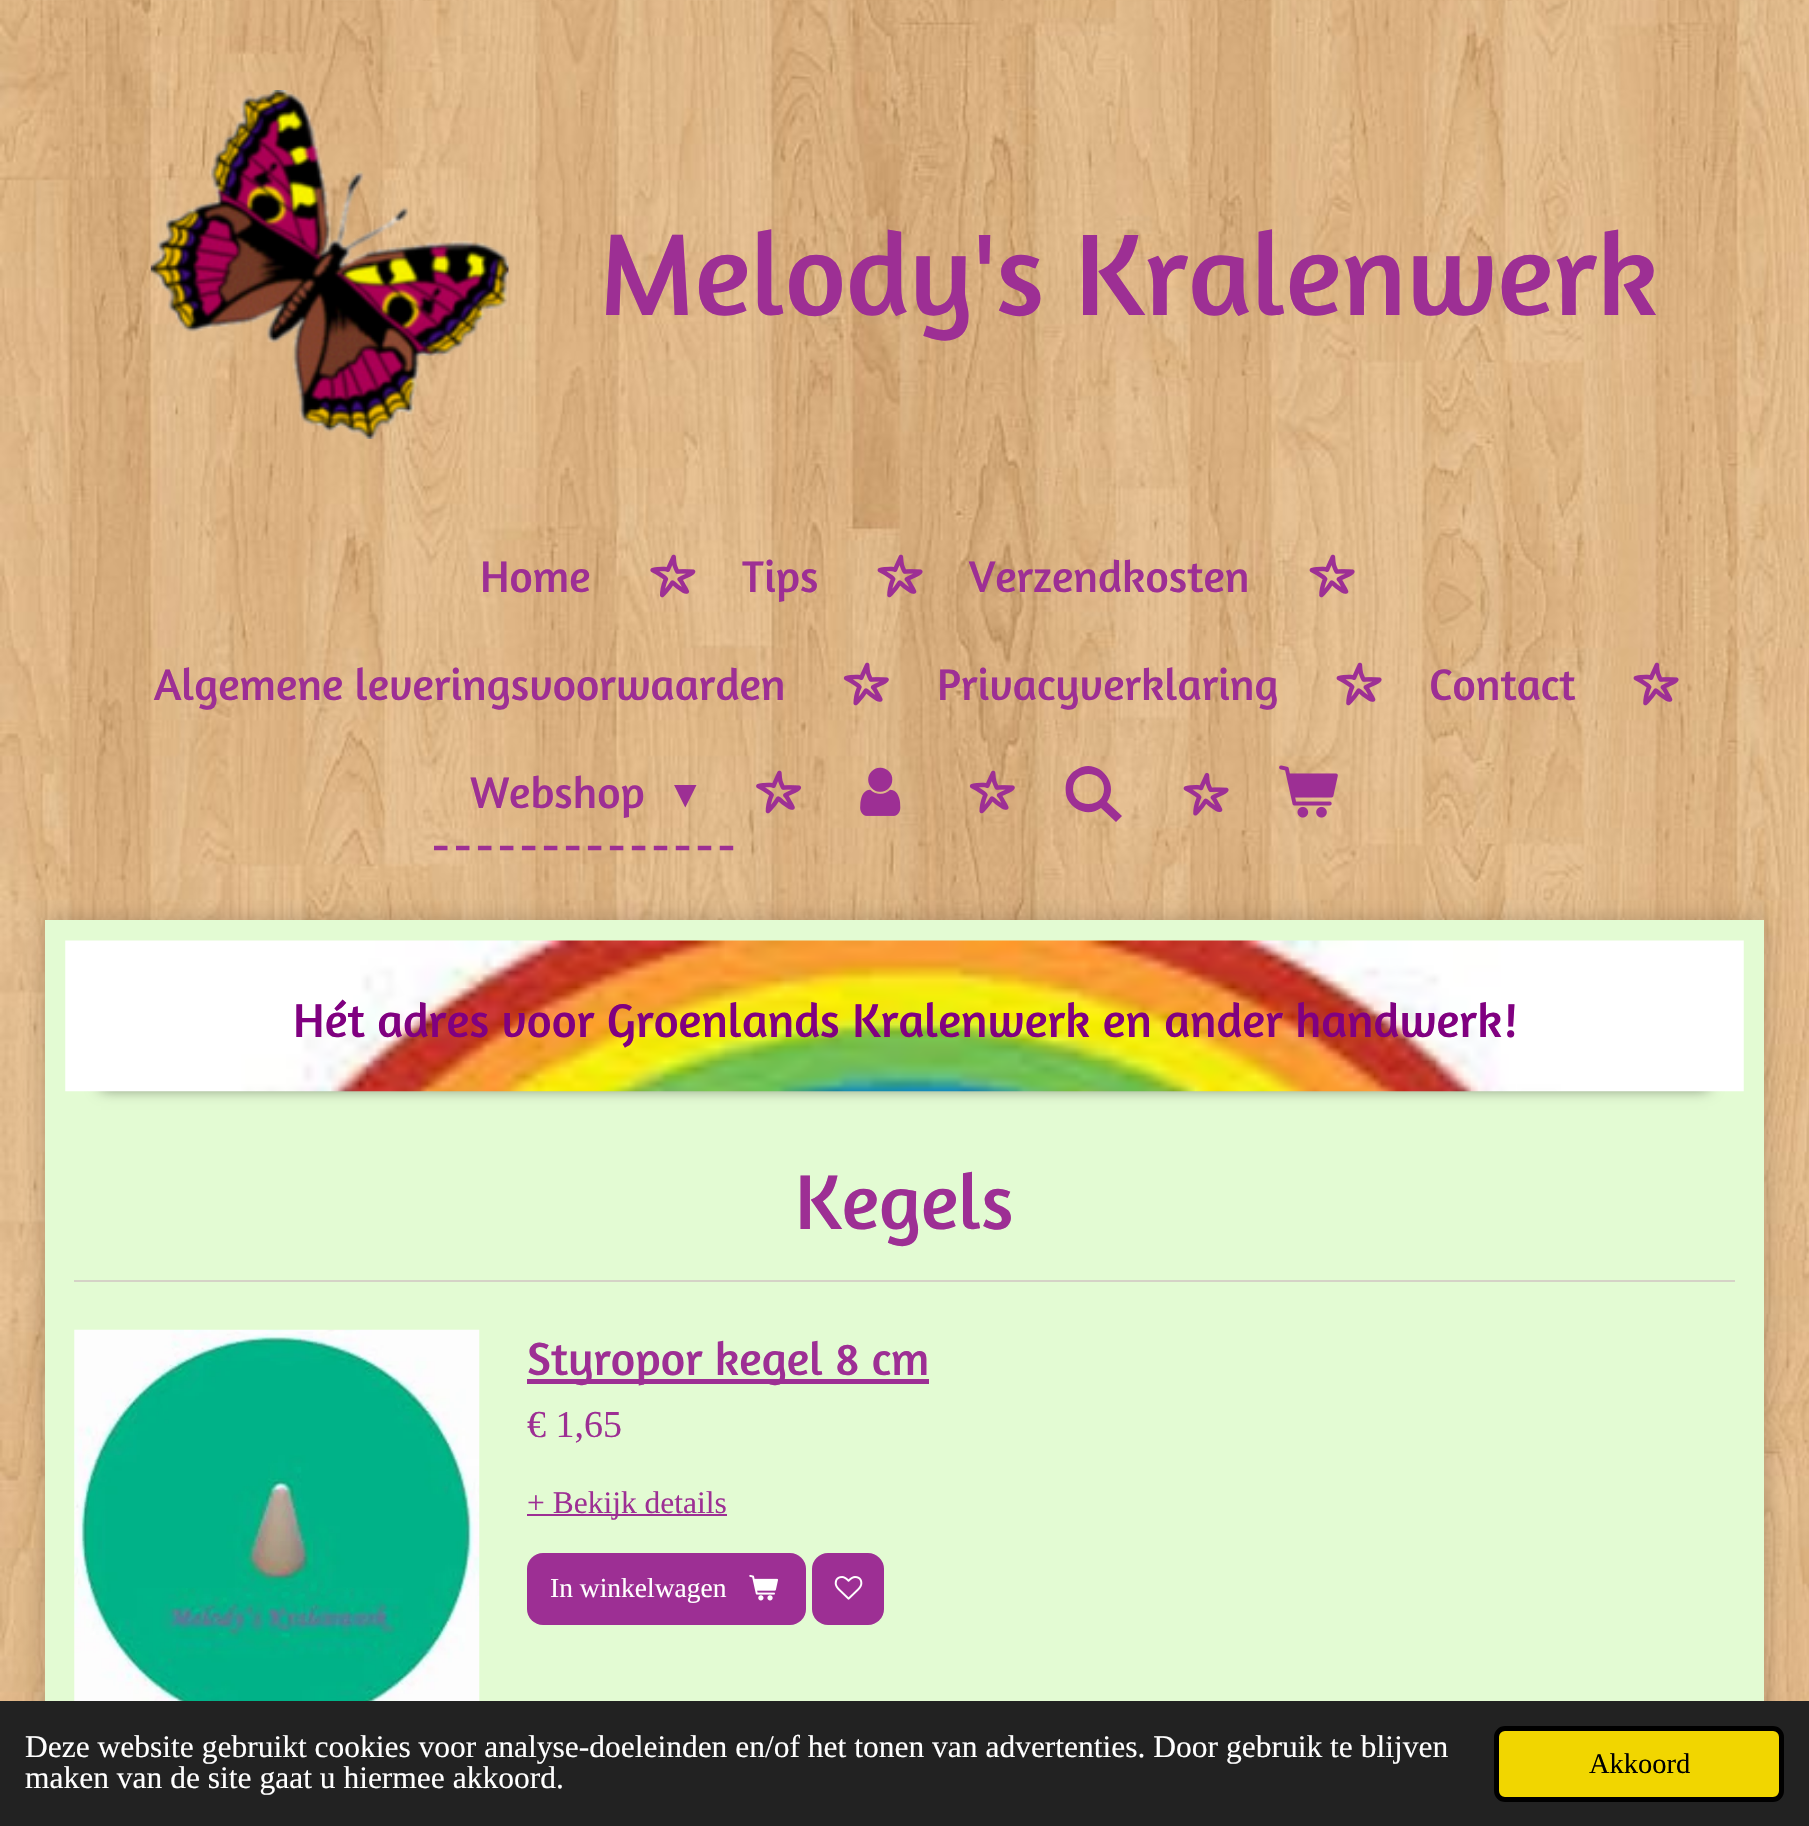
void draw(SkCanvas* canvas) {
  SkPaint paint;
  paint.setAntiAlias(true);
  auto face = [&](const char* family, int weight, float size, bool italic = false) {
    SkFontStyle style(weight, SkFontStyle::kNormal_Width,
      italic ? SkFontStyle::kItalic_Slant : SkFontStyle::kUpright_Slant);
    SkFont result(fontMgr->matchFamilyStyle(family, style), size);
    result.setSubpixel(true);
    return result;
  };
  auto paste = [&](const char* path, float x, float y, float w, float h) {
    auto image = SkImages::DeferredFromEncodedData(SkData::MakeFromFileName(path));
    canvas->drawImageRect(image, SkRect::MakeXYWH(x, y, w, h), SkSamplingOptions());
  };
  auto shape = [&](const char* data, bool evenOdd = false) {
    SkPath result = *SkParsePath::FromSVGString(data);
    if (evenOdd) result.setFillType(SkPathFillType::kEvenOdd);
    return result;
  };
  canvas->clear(0xffffffff);
  paste("img/1.png", 0, 0, 1809, 1701);
  paste("img/2.png", 150, 90, 359, 349);
  paste("img/3.png", 650, 554, 46, 44);
  paste("img/4.png", 877, 554, 46, 44);
  paste("img/5.png", 1309, 554, 46, 44);
  paste("img/6.png", 843, 662, 46, 44);
  paste("img/7.png", 1336, 662, 46, 44);
  paste("img/8.png", 1633, 662, 46, 44);
  paint.setStroke(true);
  paint.setStrokeWidth(4.5f);
  paint.setColor(0xff9d2f94);
  paint.setPathEffect(SkDashPathEffect::Make({{13.5f, 8.48f}}, 0));
  canvas->drawPath(shape("M434 848H733.5"), paint);
  paint.setPathEffect(nullptr);
  paste("img/9.png", 756, 770, 46, 44);
  paste("img/10.png", 860, 767, 41, 49);
  paste("img/11.png", 969, 770, 46, 44);
  paint.setStroke(false);
  canvas->drawPath(shape("M1107 802L1122 816L1116 822L1101 808C1090 816 1075 812 1068 800C1065 794 1065 786 1067 780C1069 776 1072 772 1076 770C1096 756 1121 782 1107 802ZM1104 789C1104 769 1073 769 1073 789C1073 809 1104 809 1104 789Z"), paint);
  paste("img/12.png", 1183, 772, 46, 44);
  paste("img/13.png", 1279, 765, 59, 53);
  paint.setColor(0x33000000);
  paint.setMaskFilter(SkMaskFilter::MakeBlur(kNormal_SkBlurStyle, 11));
  canvas->drawRect(SkRect::MakeXYWH(45, 920, 1719, 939), paint);
  paint.setMaskFilter(nullptr);
  paint.setColor(0xffe3fbd3);
  canvas->drawRect(SkRect::MakeXYWH(45, 920, 1719, 781), paint);
  paint.setColor(0x80000000);
  paint.setMaskFilter(SkMaskFilter::MakeBlur(kNormal_SkBlurStyle, 7));
  canvas->drawRect(SkRect::MakeXYWH(101, 990, 1607, 99), paint);
  paint.setMaskFilter(nullptr);
  paste("img/14.png", 65, 940, 1679, 152);
  paint.setColor(0xffd5d2c6);
  canvas->drawRect(SkRect::MakeXYWH(74, 1280, 1661, 2), paint);
  paste("img/15.png", 74, 1329, 406, 372);
  paint.setColor(0xff9d2f94);
  canvas->drawRect(SkRect::MakeXYWH(527, 1379, 402, 5), paint);
  canvas->drawRect(SkRect::MakeXYWH(527, 1514, 200, 2), paint);
  canvas->drawRoundRect(SkRect::MakeXYWH(527, 1553, 279, 72), 16, 16, paint);
  paste("img/16.png", 749, 1574, 29, 27);
  canvas->drawRoundRect(SkRect::MakeXYWH(812, 1553, 72, 72), 16, 16, paint);
  paste("img/17.png", 834, 1576, 29, 24);
  paint.setColor(0xff222222);
  canvas->drawRect(SkRect::MakeXYWH(0, 1701, 1809, 125), paint);
  paint.setColor(0xfff1d600);
  canvas->drawRoundRect(SkRect::MakeXYWH(1496.5f, 1728.5f, 285, 71), 8.5f, 8.5f, paint);
  paint.setStroke(true);
  paint.setStrokeWidth(5);
  paint.setColor(0xff000000);
  canvas->drawRoundRect(SkRect::MakeXYWH(1496.5f, 1728.5f, 285, 71), 8.5f, 8.5f, paint);
  auto f0 = face("Amaranth", 400, 118.1f);
  paint.setStroke(false);
  paint.setColor(0xff9d2f94);
  canvas->drawString("Melody's Kralenwerk", 599, 315, f0, paint);
  auto f1 = face("Amaranth", 400, 45);
  {
    const struct { const char* s; float x, y; } items[] = {
      {"Home", 480, 592},
      {"Tips", 742, 592},
      {"Verzendkosten", 969, 592},
      {"Algemene leveringsvoorwaarden", 154, 700},
      {"Privacyverklaring", 937, 700},
      {"Contact", 1429, 700},
      {"Webshop", 470, 808},
    };
    for (auto [s, x, y] : items) {
      canvas->drawString(s, x, y, f1, paint);
    }
  }
  auto f2 = face("DejaVu Sans", 400, 45);
  canvas->drawString("▾", 674, 808, f2, paint);
  auto f3 = face("Amaranth", 400, 48.2f);
  paint.setColor(0xff800080);
  canvas->drawString("Hét adres voor Groenlands Kralenwerk en ander handwerk!", 293, 1037, f3, paint);
  auto f4 = face("Amaranth", 400, 79);
  paint.setColor(0xff9d2f94);
  canvas->drawString("Kegels", 795, 1229, f4, paint);
  auto f5 = face("Amaranth", 400, 47.25f);
  canvas->drawString("Styropor kegel 8 cm", 527, 1375, f5, paint);
  auto f6 = face("Liberation Serif", 400, 38);
  canvas->drawString("€ 1,65", 527, 1437, f6, paint);
  auto f7 = face("Liberation Serif", 400, 31.5f);
  canvas->drawString("+ Bekijk details", 527, 1513, f7, paint);
  auto f8 = face("Liberation Serif", 400, 27.5f);
  paint.setColor(0xffffffff);
  canvas->drawString("In winkelwagen", 550, 1597, f8, paint);
  canvas->drawString("Deze website gebruikt cookies voor analyse-doeleinden en/of het tonen van advertenties. Door gebruik te blijven", 25, 1757, f7, paint);
  canvas->drawString("maken van de site gaat u hiermee akkoord.", 25, 1788, f7, paint);
  auto f9 = face("Liberation Serif", 400, 28.5f);
  paint.setColor(0xff000000);
  canvas->drawString("Akkoord", 1589, 1773, f9, paint);
}
